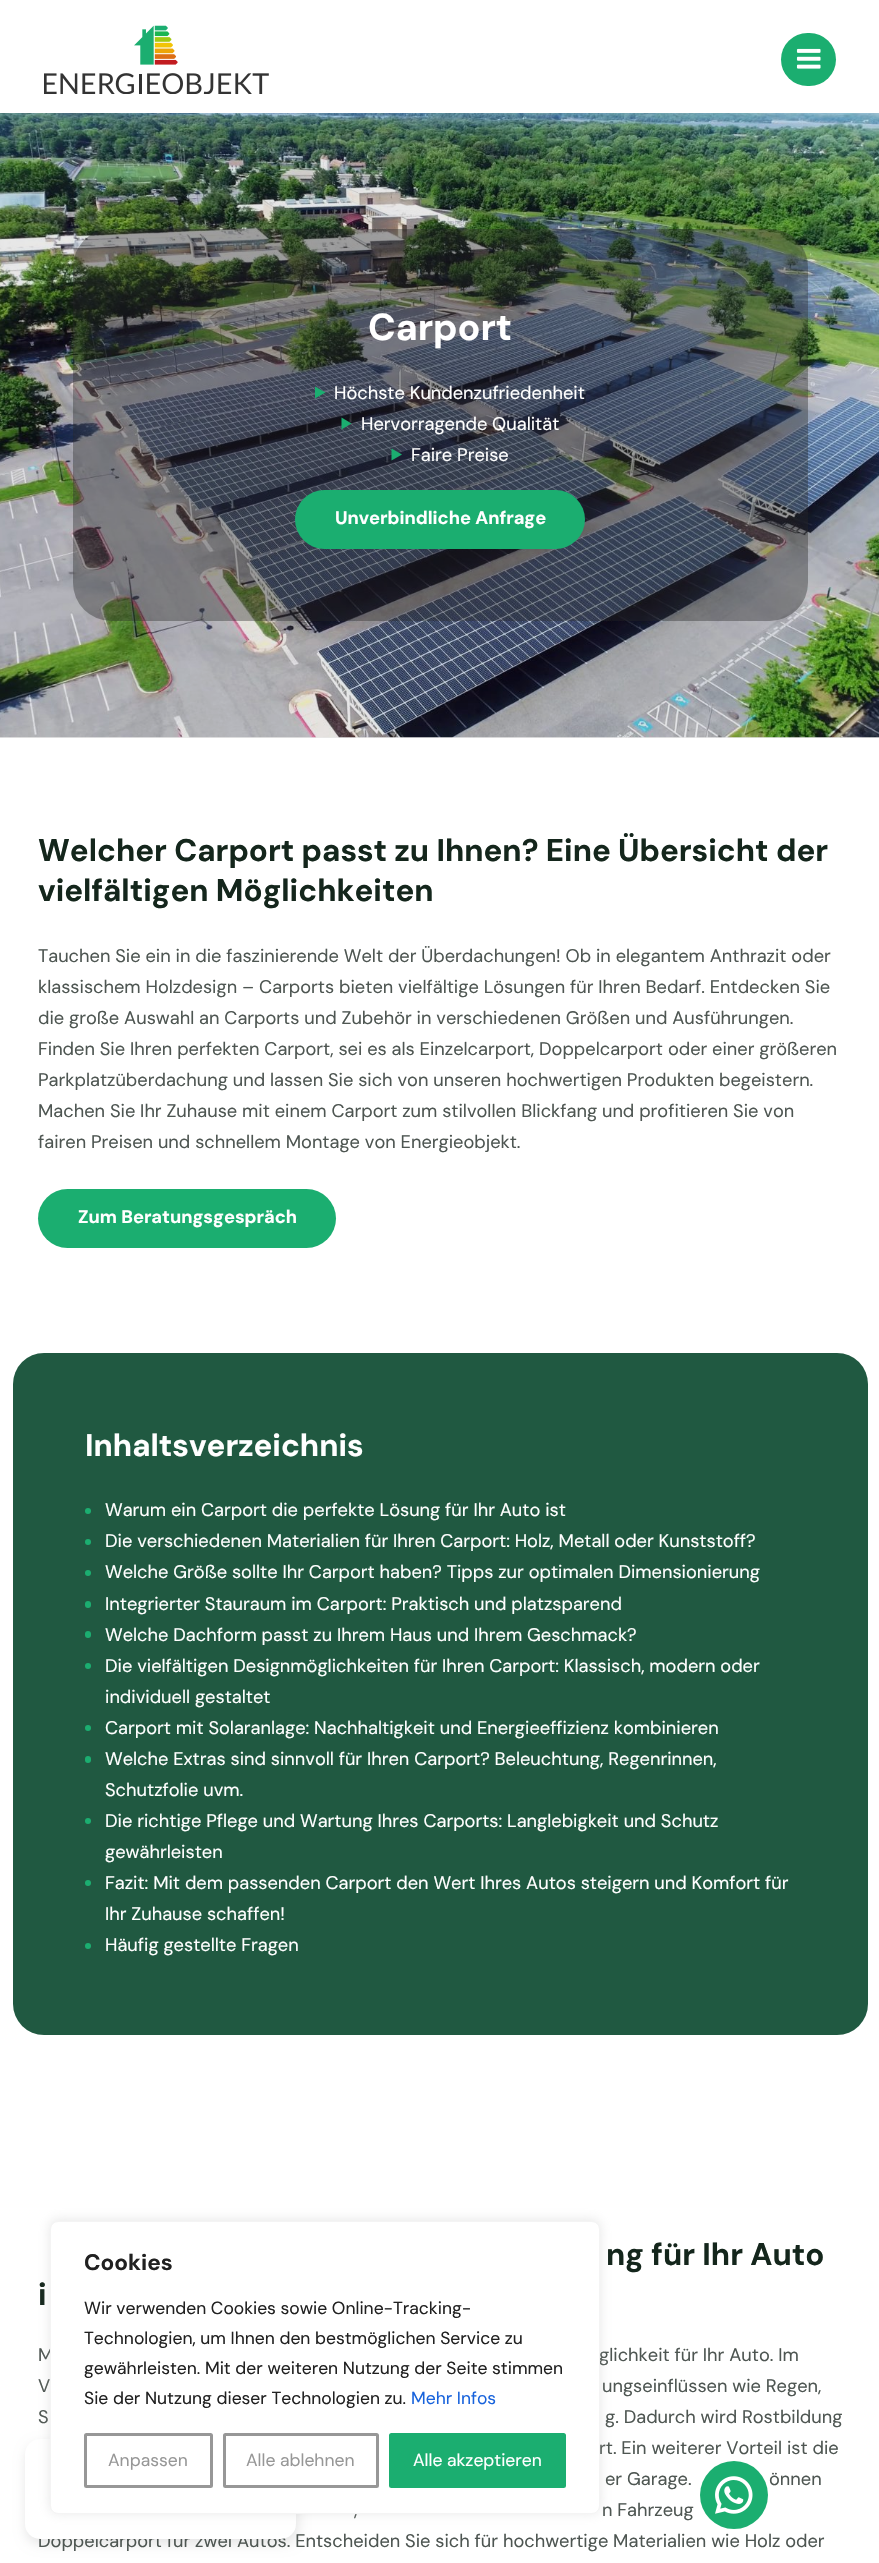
void draw(SkCanvas* canvas) {
  SkPaint paint;
  paint.setAntiAlias(true);
  auto face = [&](const char* family, int weight, float size, bool italic = false) {
    SkFontStyle style(weight, SkFontStyle::kNormal_Width,
      italic ? SkFontStyle::kItalic_Slant : SkFontStyle::kUpright_Slant);
    SkFont result(fontMgr->matchFamilyStyle(family, style), size);
    result.setSubpixel(true);
    return result;
  };
  auto paste = [&](const char* path, float x, float y, float w, float h) {
    auto image = SkImages::DeferredFromEncodedData(SkData::MakeFromFileName(path));
    canvas->drawImageRect(image, SkRect::MakeXYWH(x, y, w, h), SkSamplingOptions());
  };
  auto shape = [&](const char* data, bool evenOdd = false) {
    SkPath result = *SkParsePath::FromSVGString(data);
    if (evenOdd) result.setFillType(SkPathFillType::kEvenOdd);
    return result;
  };
  canvas->clear(0xffffffff);
  paint.setColor(0xffe8e8e8);
  canvas->drawRect(SkRect::MakeXYWH(0, 737, 879, 1), paint);
  paste("img/1.png", 44, 25, 225, 69);
  paint.setColor(0x1a000000);
  paint.setMaskFilter(SkMaskFilter::MakeBlur(kNormal_SkBlurStyle, 6));
  canvas->drawRoundRect(SkRect::MakeXYWH(26, 2444, 272, 100), 15, 15, paint);
  paint.setMaskFilter(nullptr);
  paint.setColor(0xff1bae70);
  canvas->drawRoundRect(SkRect::MakeXYWH(781, 33, 55, 53), 26.5f, 26.5f, paint);
  paste("img/2.png", 796, 48, 25, 21);
  paste("img/3.png", 0, 113, 879, 625);
  paint.setColor(0x61262626);
  canvas->drawRoundRect(SkRect::MakeXYWH(73, 229, 735, 392), 38, 38, paint);
  paint.setColor(0xff1bae70);
  canvas->drawPath(shape("M315 386.5L325.5 392.5L315 398.5Z"), paint);
  canvas->drawPath(shape("M341.5 417.5L351.5 423.5L341.5 429.5Z"), paint);
  canvas->drawPath(shape("M391.5 448.5L402 454.5L391.5 460.5Z"), paint);
  canvas->drawRoundRect(SkRect::MakeXYWH(295, 490, 290, 59), 29.5f, 29.5f, paint);
  canvas->drawRoundRect(SkRect::MakeXYWH(38, 1189, 298, 59), 29.5f, 29.5f, paint);
  paint.setColor(0xff205941);
  canvas->drawRoundRect(SkRect::MakeXYWH(13, 1353, 855, 682), 31, 31, paint);
  paint.setColor(0xff1bae70);
  canvas->drawCircle(88, 1511, 3, paint);
  canvas->drawCircle(88, 1542, 3, paint);
  canvas->drawCircle(88, 1573, 3, paint);
  canvas->drawRoundRect(SkRect::MakeXYWH(85, 1601, 6, 7), 3, 3, paint);
  canvas->drawRoundRect(SkRect::MakeXYWH(85, 1631, 6, 7), 3, 3, paint);
  canvas->drawCircle(88, 1666, 3, paint);
  canvas->drawCircle(88, 1728, 3, paint);
  canvas->drawRoundRect(SkRect::MakeXYWH(85, 1756, 6, 7), 3, 3, paint);
  canvas->drawCircle(88, 1821, 3, paint);
  canvas->drawCircle(88, 1883, 3, paint);
  canvas->drawCircle(88, 1946, 3, paint);
  canvas->drawCircle(734, 2495, 34, paint);
  paste("img/4.png", 715, 2476, 38, 38);
  auto f0 = face("DM Sans", 700, 37.5f);
  paint.setColor(0xffffffff);
  canvas->drawString("Carport", 368, 340, f0, paint);
  auto f1 = face("DM Sans", 400, 18.25f);
  {
    const struct { const char* s; float x, y; } items[] = {
      {"Höchste Kundenzufriedenheit", 334, 399},
      {"Hervorragende Qualität", 361, 430},
      {"Faire Preise", 411, 461},
    };
    for (auto [s, x, y] : items) {
      canvas->drawString(s, x, y, f1, paint);
    }
  }
  auto f2 = face("DM Sans", 700, 18.25f);
  canvas->drawString("Unverbindliche Anfrage", 335, 524, f2, paint);
  auto f3 = face("DM Sans", 700, 31.25f);
  paint.setColor(0xff14261c);
  canvas->drawString("Welcher Carport passt zu Ihnen? Eine Übersicht der", 38, 861, f3, paint);
  canvas->drawString("vielfältigen Möglichkeiten", 38, 901, f3, paint);
  paint.setColor(0xff4e5652);
  {
    const struct { const char* s; float x, y; } items[] = {
      {"Tauchen Sie ein in die faszinierende Welt der Überdachungen! Ob in elegantem Anthrazit oder", 38, 962},
      {"klassischem Holzdesign – Carports bieten vielfältige Lösungen für Ihren Bedarf. Entdecken Sie", 38, 993},
      {"die große Auswahl an Carports und Zubehör in verschiedenen Größen und Ausführungen.", 38, 1024},
      {"Finden Sie Ihren perfekten Carport, sei es als Einzelcarport, Doppelcarport oder einer größeren", 38, 1055},
      {"Parkplatzüberdachung und lassen Sie sich von unseren hochwertigen Produkten begeistern.", 38, 1086},
      {"Machen Sie Ihr Zuhause mit einem Carport zum stilvollen Blickfang und profitieren Sie von", 38, 1117},
      {"fairen Preisen und schnellem Montage von Energieobjekt.", 38, 1148},
    };
    for (auto [s, x, y] : items) {
      canvas->drawString(s, x, y, f1, paint);
    }
  }
  paint.setColor(0xffffffff);
  canvas->drawString("Zum Beratungsgespräch", 78, 1223, f2, paint);
  canvas->drawString("Inhaltsverzeichnis", 85, 1456, f3, paint);
  {
    const struct { const char* s; float x, y; } items[] = {
      {"Warum ein Carport die perfekte Lösung für Ihr Auto ist", 105, 1516},
      {"Die verschiedenen Materialien für Ihren Carport: Holz, Metall oder Kunststoff?", 105, 1547},
      {"Welche Größe sollte Ihr Carport haben? Tipps zur optimalen Dimensionierung", 105, 1578},
      {"Integrierter Stauraum im Carport: Praktisch und platzsparend", 105, 1610},
      {"Welche Dachform passt zu Ihrem Haus und Ihrem Geschmack?", 105, 1641},
      {"Die vielfältigen Designmöglichkeiten für Ihren Carport: Klassisch, modern oder", 105, 1672},
      {"individuell gestaltet", 105, 1703},
      {"Carport mit Solaranlage: Nachhaltigkeit und Energieeffizienz kombinieren", 105, 1734},
      {"Welche Extras sind sinnvoll für Ihren Carport? Beleuchtung, Regenrinnen,", 105, 1765},
      {"Schutzfolie uvm.", 105, 1796},
      {"Die richtige Pflege und Wartung Ihres Carports: Langlebigkeit und Schutz", 105, 1827},
      {"gewährleisten", 105, 1858},
      {"Fazit: Mit dem passenden Carport den Wert Ihres Autos steigern und Komfort für", 105, 1889},
      {"Ihr Zuhause schaffen!", 105, 1920},
      {"Häufig gestellte Fragen", 105, 1951},
    };
    for (auto [s, x, y] : items) {
      canvas->drawString(s, x, y, f1, paint);
    }
  }
  paint.setColor(0xff14261c);
  canvas->drawString("ng für Ihr Auto", 606, 2265, f3, paint);
  canvas->drawString("i", 38, 2305, f3, paint);
  paint.setColor(0xff4e5652);
  {
    const struct { const char* s; float x, y; } items[] = {
      {"M", 38, 2361},
      {"glichkeit für Ihr Auto. Im", 599, 2361},
      {"V", 38, 2392},
      {"ungseinflüssen wie Regen,", 602, 2392},
      {"S", 38, 2423},
      {"g. Dadurch wird Rostbildung", 605, 2423},
      {"rt. Ein weiterer Vorteil ist die", 599, 2454},
      {"er Garage.", 605, 2485},
      {"önnen", 769, 2485},
      {",", 354, 2516},
      {"n Fahrzeug", 602, 2516},
      {"Doppelcarport für zwei Autos. Entscheiden Sie sich für hochwertige Materialien wie Holz oder", 38, 2547},
    };
    for (auto [s, x, y] : items) {
      canvas->drawString(s, x, y, f1, paint);
    }
  }
  paint.setColor(0xffffffff);
  canvas->drawRoundRect(SkRect::MakeXYWH(25, 2439, 271, 100), 15, 15, paint);
  paint.setColor(0x4dacabab);
  paint.setMaskFilter(SkMaskFilter::MakeBlur(kNormal_SkBlurStyle, 6));
  canvas->drawRoundRect(SkRect::MakeXYWH(50, 2220, 550, 293), 8, 8, paint);
  paint.setMaskFilter(nullptr);
  paint.setColor(0xffffffff);
  canvas->drawRoundRect(SkRect::MakeXYWH(50.5f, 2221.5f, 549, 292), 7.5f, 7.5f, paint);
  paint.setStroke(true);
  paint.setStrokeWidth(1);
  paint.setColor(0xfff4f4f4);
  canvas->drawRoundRect(SkRect::MakeXYWH(50.5f, 2221.5f, 549, 292), 7.5f, 7.5f, paint);
  auto f4 = face("DM Sans", 700, 22.5f);
  paint.setStroke(false);
  paint.setColor(0xff212121);
  canvas->drawString("Cookies", 84, 2270, f4, paint);
  auto f5 = face("DM Sans", 400, 17.5f);
  {
    const struct { const char* s; float x, y; } items[] = {
      {"Wir verwenden Cookies sowie Online-Tracking-", 84, 2314},
      {"Technologien, um Ihnen den bestmöglichen Service zu", 84, 2344},
      {"gewährleisten. Mit der weiteren Nutzung der Seite stimmen", 84, 2374},
      {"Sie der Nutzung dieser Technologien zu.", 84, 2404},
    };
    for (auto [s, x, y] : items) {
      canvas->drawString(s, x, y, f5, paint);
    }
  }
  paint.setColor(0xff1863dc);
  canvas->drawString("Mehr Infos", 411, 2404, f5, paint);
  paint.setStroke(true);
  paint.setStrokeWidth(3);
  paint.setColor(0xff979797);
  canvas->drawRoundRect(SkRect::MakeXYWH(85.5f, 2434.5f, 126, 52), 1, 1, paint);
  paint.setStroke(false);
  canvas->drawString("Anpassen", 108, 2466, f5, paint);
  paint.setStroke(true);
  canvas->drawRoundRect(SkRect::MakeXYWH(224.5f, 2434.5f, 153, 52), 1, 1, paint);
  paint.setStroke(false);
  canvas->drawString("Alle ablehnen", 246, 2466, f5, paint);
  paint.setColor(0xff1bae70);
  canvas->drawRoundRect(SkRect::MakeXYWH(390.5f, 2434.5f, 174, 52), 1, 1, paint);
  paint.setStroke(true);
  canvas->drawRoundRect(SkRect::MakeXYWH(390.5f, 2434.5f, 174, 52), 1, 1, paint);
  paint.setStroke(false);
  paint.setColor(0xffffffff);
  canvas->drawString("Alle akzeptieren", 413, 2466, f5, paint);
}
